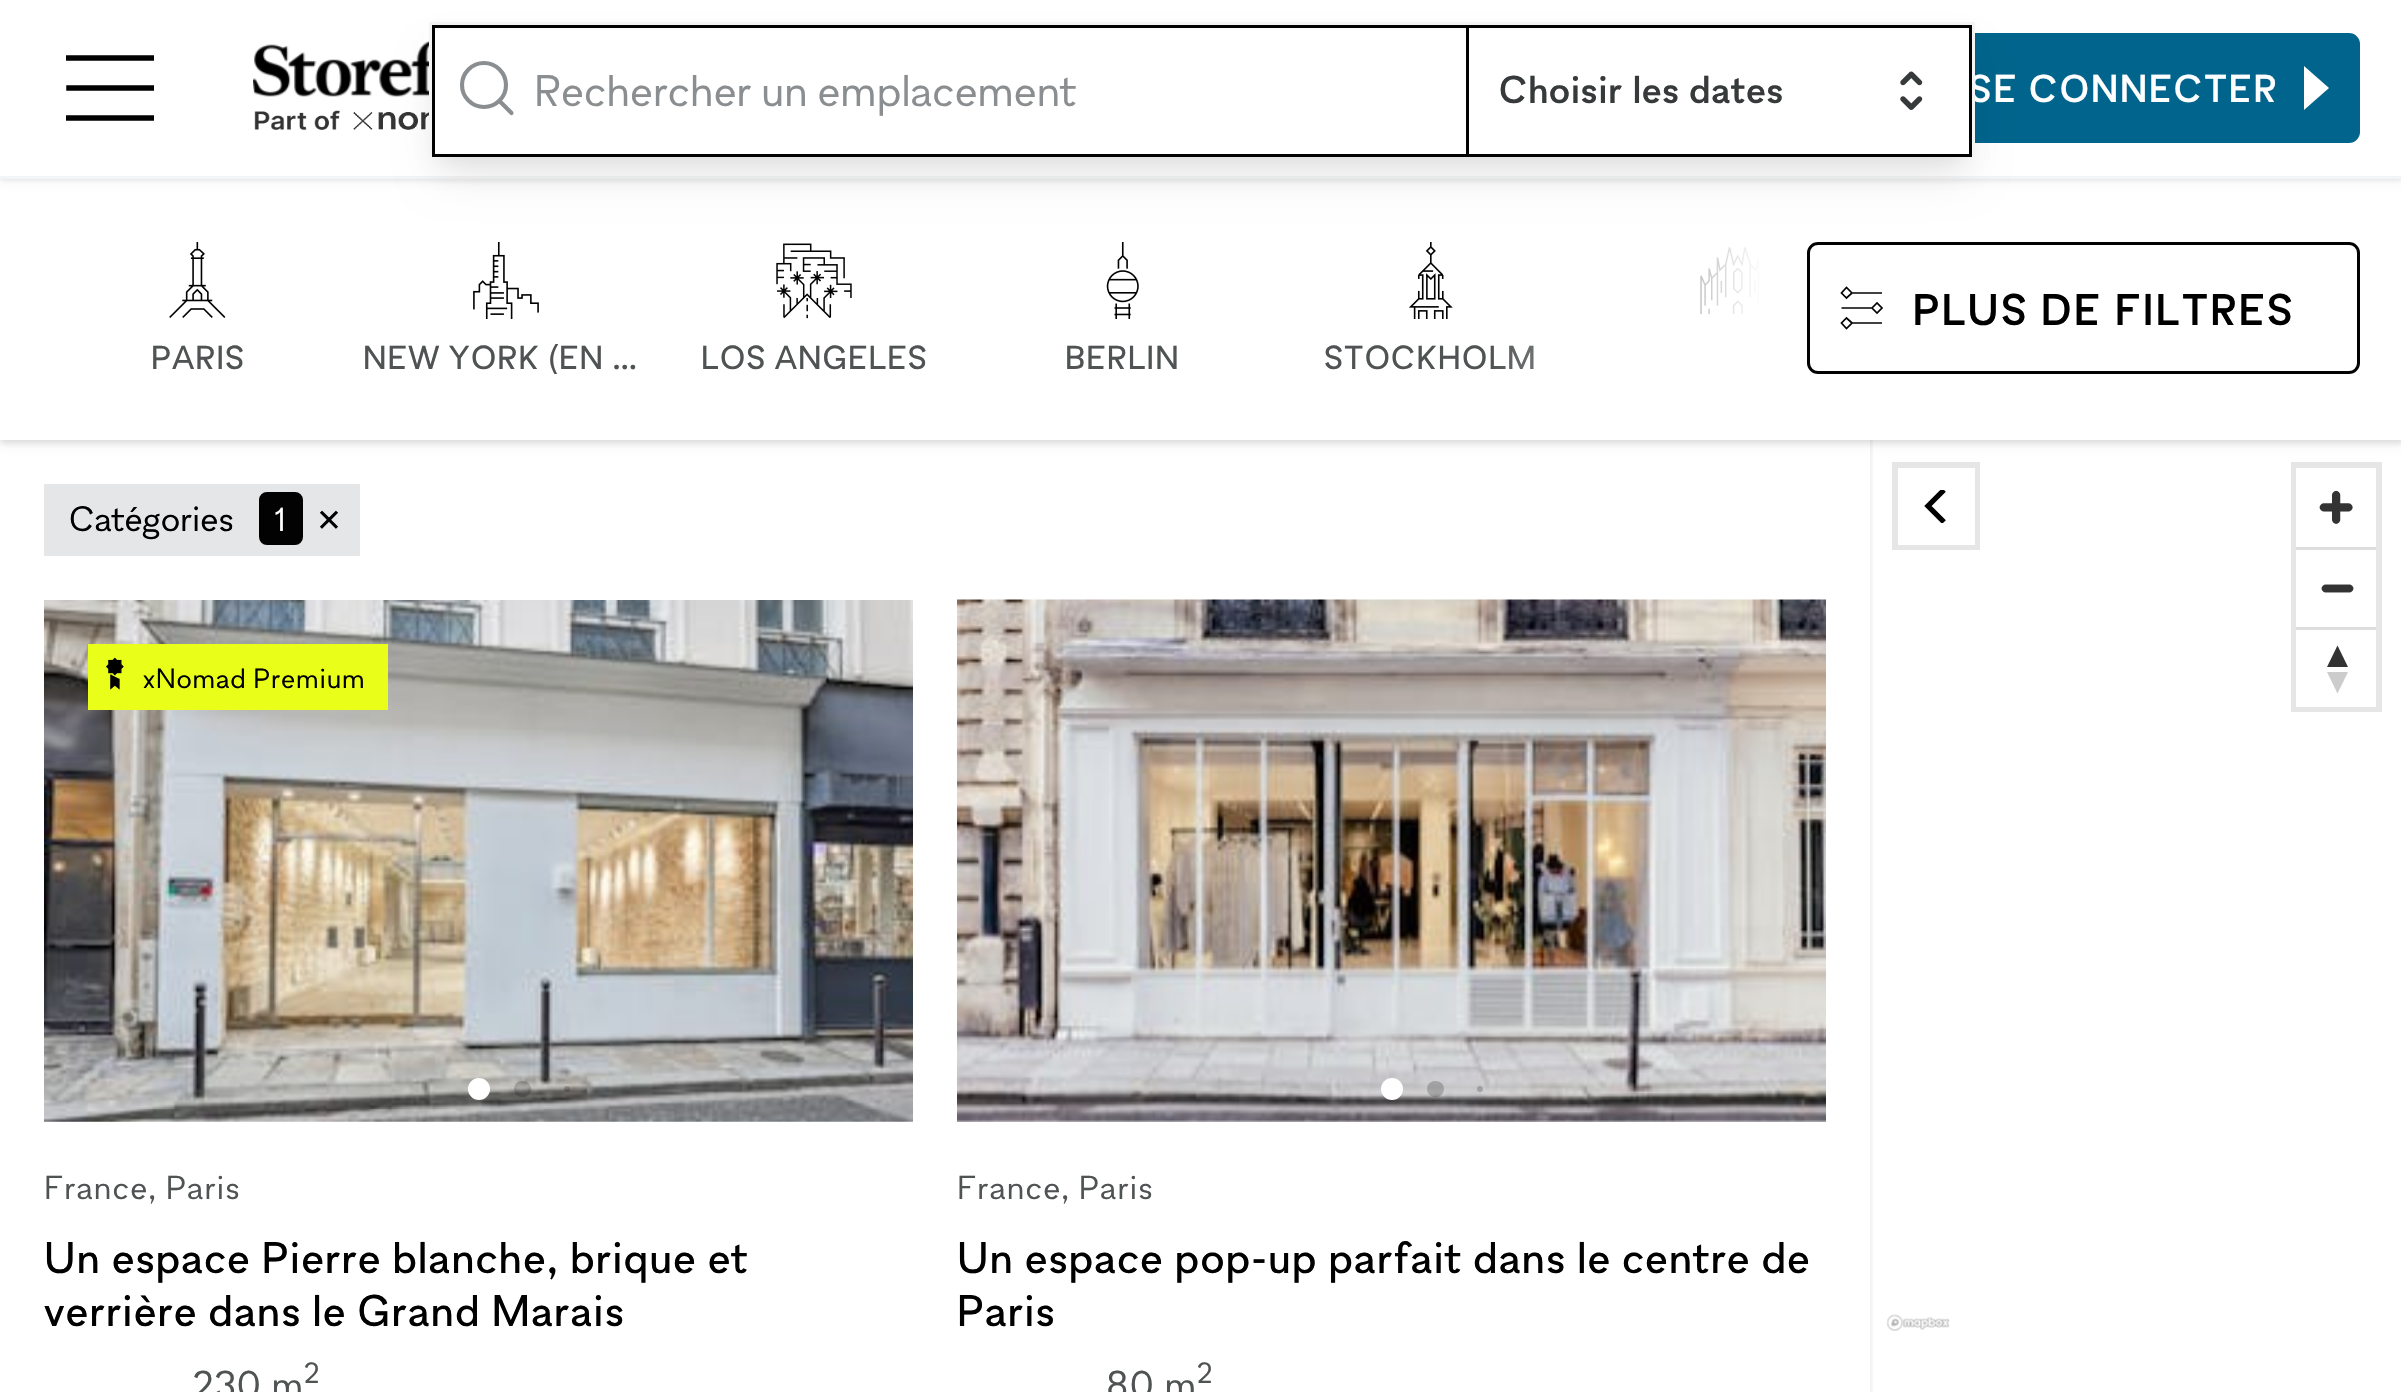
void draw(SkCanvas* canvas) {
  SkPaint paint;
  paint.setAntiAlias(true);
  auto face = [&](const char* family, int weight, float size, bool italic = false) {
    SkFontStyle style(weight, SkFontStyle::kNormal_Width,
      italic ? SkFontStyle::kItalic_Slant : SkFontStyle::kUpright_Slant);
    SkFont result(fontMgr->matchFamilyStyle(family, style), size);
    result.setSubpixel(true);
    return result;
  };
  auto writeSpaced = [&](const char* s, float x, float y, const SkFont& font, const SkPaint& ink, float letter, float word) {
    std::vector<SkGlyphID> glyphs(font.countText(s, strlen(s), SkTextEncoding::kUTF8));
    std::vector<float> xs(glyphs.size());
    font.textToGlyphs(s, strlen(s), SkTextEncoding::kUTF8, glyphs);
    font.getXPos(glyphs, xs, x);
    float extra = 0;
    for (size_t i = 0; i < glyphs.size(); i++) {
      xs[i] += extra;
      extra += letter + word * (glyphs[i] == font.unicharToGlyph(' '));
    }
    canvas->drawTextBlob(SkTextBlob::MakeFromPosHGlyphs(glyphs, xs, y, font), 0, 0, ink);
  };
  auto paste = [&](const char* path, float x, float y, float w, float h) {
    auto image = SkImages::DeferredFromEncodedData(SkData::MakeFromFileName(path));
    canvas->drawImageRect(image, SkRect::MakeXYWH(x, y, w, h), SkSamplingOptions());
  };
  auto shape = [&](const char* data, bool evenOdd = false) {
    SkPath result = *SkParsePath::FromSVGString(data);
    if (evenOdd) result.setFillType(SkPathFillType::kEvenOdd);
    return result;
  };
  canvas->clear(0xffffffff);
  paint.setColor(0x0f000000);
  paint.setMaskFilter(SkMaskFilter::MakeBlur(kNormal_SkBlurStyle, 3));
  canvas->drawRect(SkRect::MakeXYWH(0, 179, 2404, 264), paint);
  paint.setMaskFilter(nullptr);
  paint.setColor(0x1a000000);
  paint.setMaskFilter(SkMaskFilter::MakeBlur(kNormal_SkBlurStyle, 4));
  canvas->drawRect(SkRect::MakeXYWH(0, 179, 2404, 264), paint);
  paint.setMaskFilter(nullptr);
  canvas->save();
  canvas->clipRect(SkRect::MakeXYWH(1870, 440, 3, 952));
  paint.setMaskFilter(SkMaskFilter::MakeBlur(kNormal_SkBlurStyle, 4));
  canvas->drawRect(SkRect::MakeXYWH(0, 3, 1870, 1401), paint);
  paint.setMaskFilter(nullptr);
  canvas->restore();
  paint.setColor(0xffffffff);
  canvas->drawRect(SkRect::MakeXYWH(0, 179, 2401, 261), paint);
  paint.setColor(0x0f000000);
  paint.setMaskFilter(SkMaskFilter::MakeBlur(kNormal_SkBlurStyle, 3));
  canvas->drawRect(SkRect::MakeXYWH(0, 3, 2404, 176), paint);
  paint.setMaskFilter(nullptr);
  paint.setColor(0x1a000000);
  paint.setMaskFilter(SkMaskFilter::MakeBlur(kNormal_SkBlurStyle, 4));
  canvas->drawRect(SkRect::MakeXYWH(0, 3, 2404, 176), paint);
  paint.setMaskFilter(nullptr);
  paint.setStroke(true);
  paint.setStrokeWidth(3);
  paint.setColor(0xfff3f4f5);
  canvas->drawRect(SkRect::MakeXYWH(-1.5f, -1.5f, 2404, 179), paint);
  paint.setStroke(false);
  paint.setColor(0xffffffff);
  canvas->drawRect(SkRect::MakeXYWH(0, 0, 2401, 176), paint);
  paste("img/2.png", 253, 41, 176, 56);
  paste("img/3.png", 254, 110, 175, 20);
  paint.setColor(0xff00648c);
  canvas->drawRoundRect(SkRect::MakeXYWH(1918.5f, 34.5f, 440, 107), 9.5f, 9.5f, paint);
  paint.setStroke(true);
  canvas->drawRoundRect(SkRect::MakeXYWH(1918.5f, 34.5f, 440, 107), 9.5f, 9.5f, paint);
  paint.setStroke(false);
  paint.setColor(0x0d000000);
  paint.setMaskFilter(SkMaskFilter::MakeBlur(kNormal_SkBlurStyle, 8));
  canvas->drawRect(SkRect::MakeXYWH(437, 41, 1529, 119), paint);
  paint.setMaskFilter(nullptr);
  paint.setColor(0x1a000000);
  paint.setMaskFilter(SkMaskFilter::MakeBlur(kNormal_SkBlurStyle, 20.5f));
  canvas->drawRect(SkRect::MakeXYWH(440, 61, 1524, 112), paint);
  paint.setMaskFilter(nullptr);
  canvas->save();
  canvas->clipRect(SkRect::MakeXYWH(66, 44, 88, 88));
  paint.setStroke(true);
  paint.setStrokeWidth(5.5f);
  paint.setStrokeCap(SkPaint::kSquare_Cap);
  paint.setColor(0xff020203);
  canvas->drawPath(shape("M66 58H154M69 88H157M66 118H154"), paint);
  canvas->restore();
  paint.setStroke(false);
  paint.setColor(0xffffffff);
  canvas->drawPath(shape("M2304 66L2329 88L2304 110"), paint);
  paint.setStroke(true);
  paint.setStrokeWidth(3);
  paint.setStrokeCap(SkPaint::kButt_Cap);
  paint.setColor(0xff020203);
  canvas->drawRoundRect(SkRect::MakeXYWH(1808.5f, 243.5f, 550, 129), 9.5f, 9.5f, paint);
  paint.setStrokeWidth(1.7f);
  canvas->drawPath(shape("M1852 293L1846.5 287.5L1841.5 293L1846.5 298ZM1852 293H1882M1872 308L1877 303L1882 308L1877 313ZM1872 308H1841.5M1852 323L1846.5 318L1841.5 323L1846.5 328.5ZM1852 323H1882"), paint);
  paste("img/4.png", 1700, 247, 61, 68);
  paste("img/5.png", 169, 242, 57, 76);
  paste("img/6.png", 473, 242, 66, 77);
  paste("img/7.png", 776, 243, 76, 76);
  paste("img/8.png", 1106, 242, 33, 77);
  paste("img/9.png", 1408, 242, 45, 77);
  paint.setStroke(false);
  paint.setColor(0xffe4e6e7);
  canvas->drawRect(SkRect::MakeXYWH(44, 484, 316, 72), paint);
  paint.setColor(0xff020203);
  canvas->drawRoundRect(SkRect::MakeXYWH(260.5f, 493.5f, 41, 50), 6.5f, 6.5f, paint);
  paint.setStroke(true);
  paint.setStrokeWidth(3);
  canvas->drawRoundRect(SkRect::MakeXYWH(260.5f, 493.5f, 41, 50), 6.5f, 6.5f, paint);
  paste("img/10.png", 44, 600, 869, 522);
  paint.setStroke(false);
  paint.setColor(0xffffffff);
  canvas->drawCircle(479, 1089, 11, paint);
  paint.setColor(0x33000000);
  canvas->drawRoundRect(SkRect::MakeXYWH(514, 1081, 17, 16), 8, 8, paint);
  canvas->drawCircle(567, 1089, 3, paint);
  paint.setColor(0xffe9ff19);
  canvas->drawRect(SkRect::MakeXYWH(88, 644, 300, 66), paint);
  paste("img/11.png", 106, 657, 18, 33);
  paint.setColor(0xfff3f4f5);
  canvas->drawRect(SkRect::MakeXYWH(957, 1120, 869, 2), paint);
  paste("img/12.png", 957, 599, 869, 523);
  paint.setColor(0xffffffff);
  canvas->drawCircle(1392, 1089, 11, paint);
  paint.setColor(0x33000000);
  canvas->drawRoundRect(SkRect::MakeXYWH(1427, 1081, 17, 16), 8, 8, paint);
  canvas->drawCircle(1480, 1089, 3, paint);
  paint.setStroke(true);
  paint.setStrokeWidth(6);
  paint.setColor(0xffe6e6e6);
  canvas->drawRect(SkRect::MakeXYWH(2294, 465, 85, 244), paint);
  paint.setStroke(false);
  paint.setColor(0xffffffff);
  canvas->drawRect(SkRect::MakeXYWH(2296, 468, 80, 239), paint);
  paste("img/13.png", 2319, 490, 34, 34);
  paint.setColor(0xffdddddd);
  canvas->drawRect(SkRect::MakeXYWH(2296, 547, 80, 3), paint);
  paste("img/14.png", 2321, 584, 33, 9);
  canvas->drawRect(SkRect::MakeXYWH(2296, 627, 80, 3), paint);
  paint.setColor(0xff333333);
  canvas->drawPath(shape("M2327 667L2337.5 645.5L2348 667Z"), paint);
  paint.setColor(0xffcccccc);
  canvas->drawPath(shape("M2327 672L2337.5 693.5L2348 672Z"), paint);
  paste("img/15.png", 1886, 1314, 64, 17);
  paint.setStroke(true);
  paint.setColor(0xffe6e6e6);
  canvas->drawRect(SkRect::MakeXYWH(1895, 465, 82, 82), paint);
  paint.setStroke(false);
  paint.setColor(0xffffffff);
  canvas->drawRect(SkRect::MakeXYWH(1898, 468, 77, 77), paint);
  canvas->save();
  canvas->clipRect(SkRect::MakeXYWH(1920, 490, 33, 33));
  paint.setStroke(true);
  paint.setStrokeWidth(5.3f);
  paint.setColor(0xff000000);
  canvas->drawPath(shape("M1944 490L1928 506L1944 522"), paint);
  canvas->restore();
  auto f0 = face("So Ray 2", 400, 38.5f);
  paint.setStroke(false);
  paint.setColor(0xffffffff);
  writeSpaced("SE CONNECTER", 1969, 102, f0, paint, 2.25f, 0);
  paint.setStroke(true);
  paint.setStrokeWidth(3);
  paint.setColor(0xfff3f4f5);
  canvas->drawRect(SkRect::MakeXYWH(430.5f, 23.5f, 1543, 132), paint);
  paint.setStroke(false);
  paint.setColor(0xffffffff);
  canvas->drawRect(SkRect::MakeXYWH(435, 29, 1031, 125), paint);
  paint.setStroke(true);
  paint.setColor(0xff020203);
  canvas->drawRect(SkRect::MakeXYWH(433.5f, 26.5f, 1034, 129), paint);
  paint.setStrokeWidth(4.1f);
  paint.setColor(0xff8a8e90);
  canvas->drawCircle(484, 85, 22, paint);
  paint.setStrokeCap(SkPaint::kRound_Cap);
  paint.setStrokeJoin(SkPaint::kRound_Join);
  canvas->drawPath(shape("M511.5 113L499.5 101"), paint);
  paint.setStroke(false);
  paint.setColor(0xffffffff);
  canvas->drawRect(SkRect::MakeXYWH(1469, 29, 500, 125), paint);
  paint.setStroke(true);
  paint.setStrokeWidth(3);
  paint.setStrokeCap(SkPaint::kButt_Cap);
  paint.setStrokeJoin(SkPaint::kMiter_Join);
  paint.setColor(0xff020203);
  canvas->drawRect(SkRect::MakeXYWH(1467.5f, 26.5f, 503, 129), paint);
  paste("img/1.png", 1900, 71, 23, 39);
  paint.setStroke(false);
  paint.setColor(0xff373a3b);
  writeSpaced("Choisir les dates", 1499, 103, f0, paint, 1.2f, 0);
  auto f1 = face("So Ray", 300, 44);
  paint.setColor(0xff8a8e90);
  canvas->drawString("Rechercher un emplacement", 534, 106, f1, paint);
  auto f2 = face("So Ray 2", 400, 44);
  paint.setColor(0xff000000);
  writeSpaced("PLUS DE FILTRES", 1913, 325, f2, paint, 2.6f, 0);
  auto f3 = face("So Ray", 400, 33);
  paint.setColor(0xff505354);
  writeSpaced("PARIS", 151, 369, f3, paint, 1, 0);
  canvas->save();
  canvas->clipRect(SkRect::MakeXYWH(352, 341, 308, 33));
  writeSpaced("NEW YORK (EN …", 363, 369, f3, paint, 1, 0);
  canvas->restore();
  {
    const struct { const char* s; float x, y; } items[] = {
      {"LOS ANGELES", 701, 369},
      {"BERLIN", 1065, 369},
      {"STOCKHOLM", 1324, 369},
    };
    for (auto [s, x, y] : items) {
      writeSpaced(s, x, y, f3, paint, 1, 0);
    }
  }
  {
    const SkColor colors[] = {0x00ffffff, 0xffffffff};
    const float stops[] = {0, 1};
    const SkPoint ends[] = {{1488, 308}, {1763, 308}};
    paint.setShader(SkGradientShader::MakeLinear(ends, colors, stops, 2, SkTileMode::kClamp));
    paint.setAlpha(255);
  }
  canvas->drawRect(SkRect::MakeXYWH(1494, 247, 267, 122), paint);
  auto f4 = face("So Ray", 300, 35);
  paint.setShader(nullptr);
  paint.setColor(0xff000000);
  canvas->drawString("Catégories", 69, 531, f4, paint);
  auto f5 = face("So Ray", 300, 33);
  paint.setColor(0xffffffff);
  canvas->drawString("1", 275, 531, f5, paint);
  auto f6 = face("DejaVu Sans", 400, 31);
  paint.setColor(0xff000000);
  canvas->drawString("✕", 316, 531, f6, paint);
  auto f7 = face("So Ray", 300, 27.5f);
  writeSpaced("xNomad Premium", 143, 688, f7, paint, 0.75f, 0);
  paint.setColor(0xff505354);
  writeSpaced("France, Paris", 44, 1199, f5, paint, 1, 0);
  auto f8 = face("So Ray", 400, 44);
  paint.setColor(0xff000000);
  writeSpaced("Un espace Pierre blanche, brique et", 44, 1273, f8, paint, 1.3f, 0);
  writeSpaced("verrière dans le Grand Marais", 44, 1326, f8, paint, 1.3f, 0);
  auto f9 = face("So Ray", 300, 38.5f);
  paint.setColor(0xff505354);
  writeSpaced("230 m", 193, 1398, f9, paint, 1.2f, 0);
  auto f10 = face("So Ray", 300, 29);
  writeSpaced("2", 304, 1383, f10, paint, 1.2f, 0);
  writeSpaced("France, Paris", 957, 1199, f5, paint, 1, 0);
  paint.setColor(0xff000000);
  writeSpaced("Un espace pop-up parfait dans le centre de", 957, 1273, f8, paint, 1.3f, 0);
  writeSpaced("Paris", 957, 1326, f8, paint, 1.3f, 0);
  paint.setColor(0xff505354);
  writeSpaced("80 m", 1106, 1398, f9, paint, 1.2f, 0);
  writeSpaced("2", 1197, 1383, f10, paint, 1.2f, 0);
}
